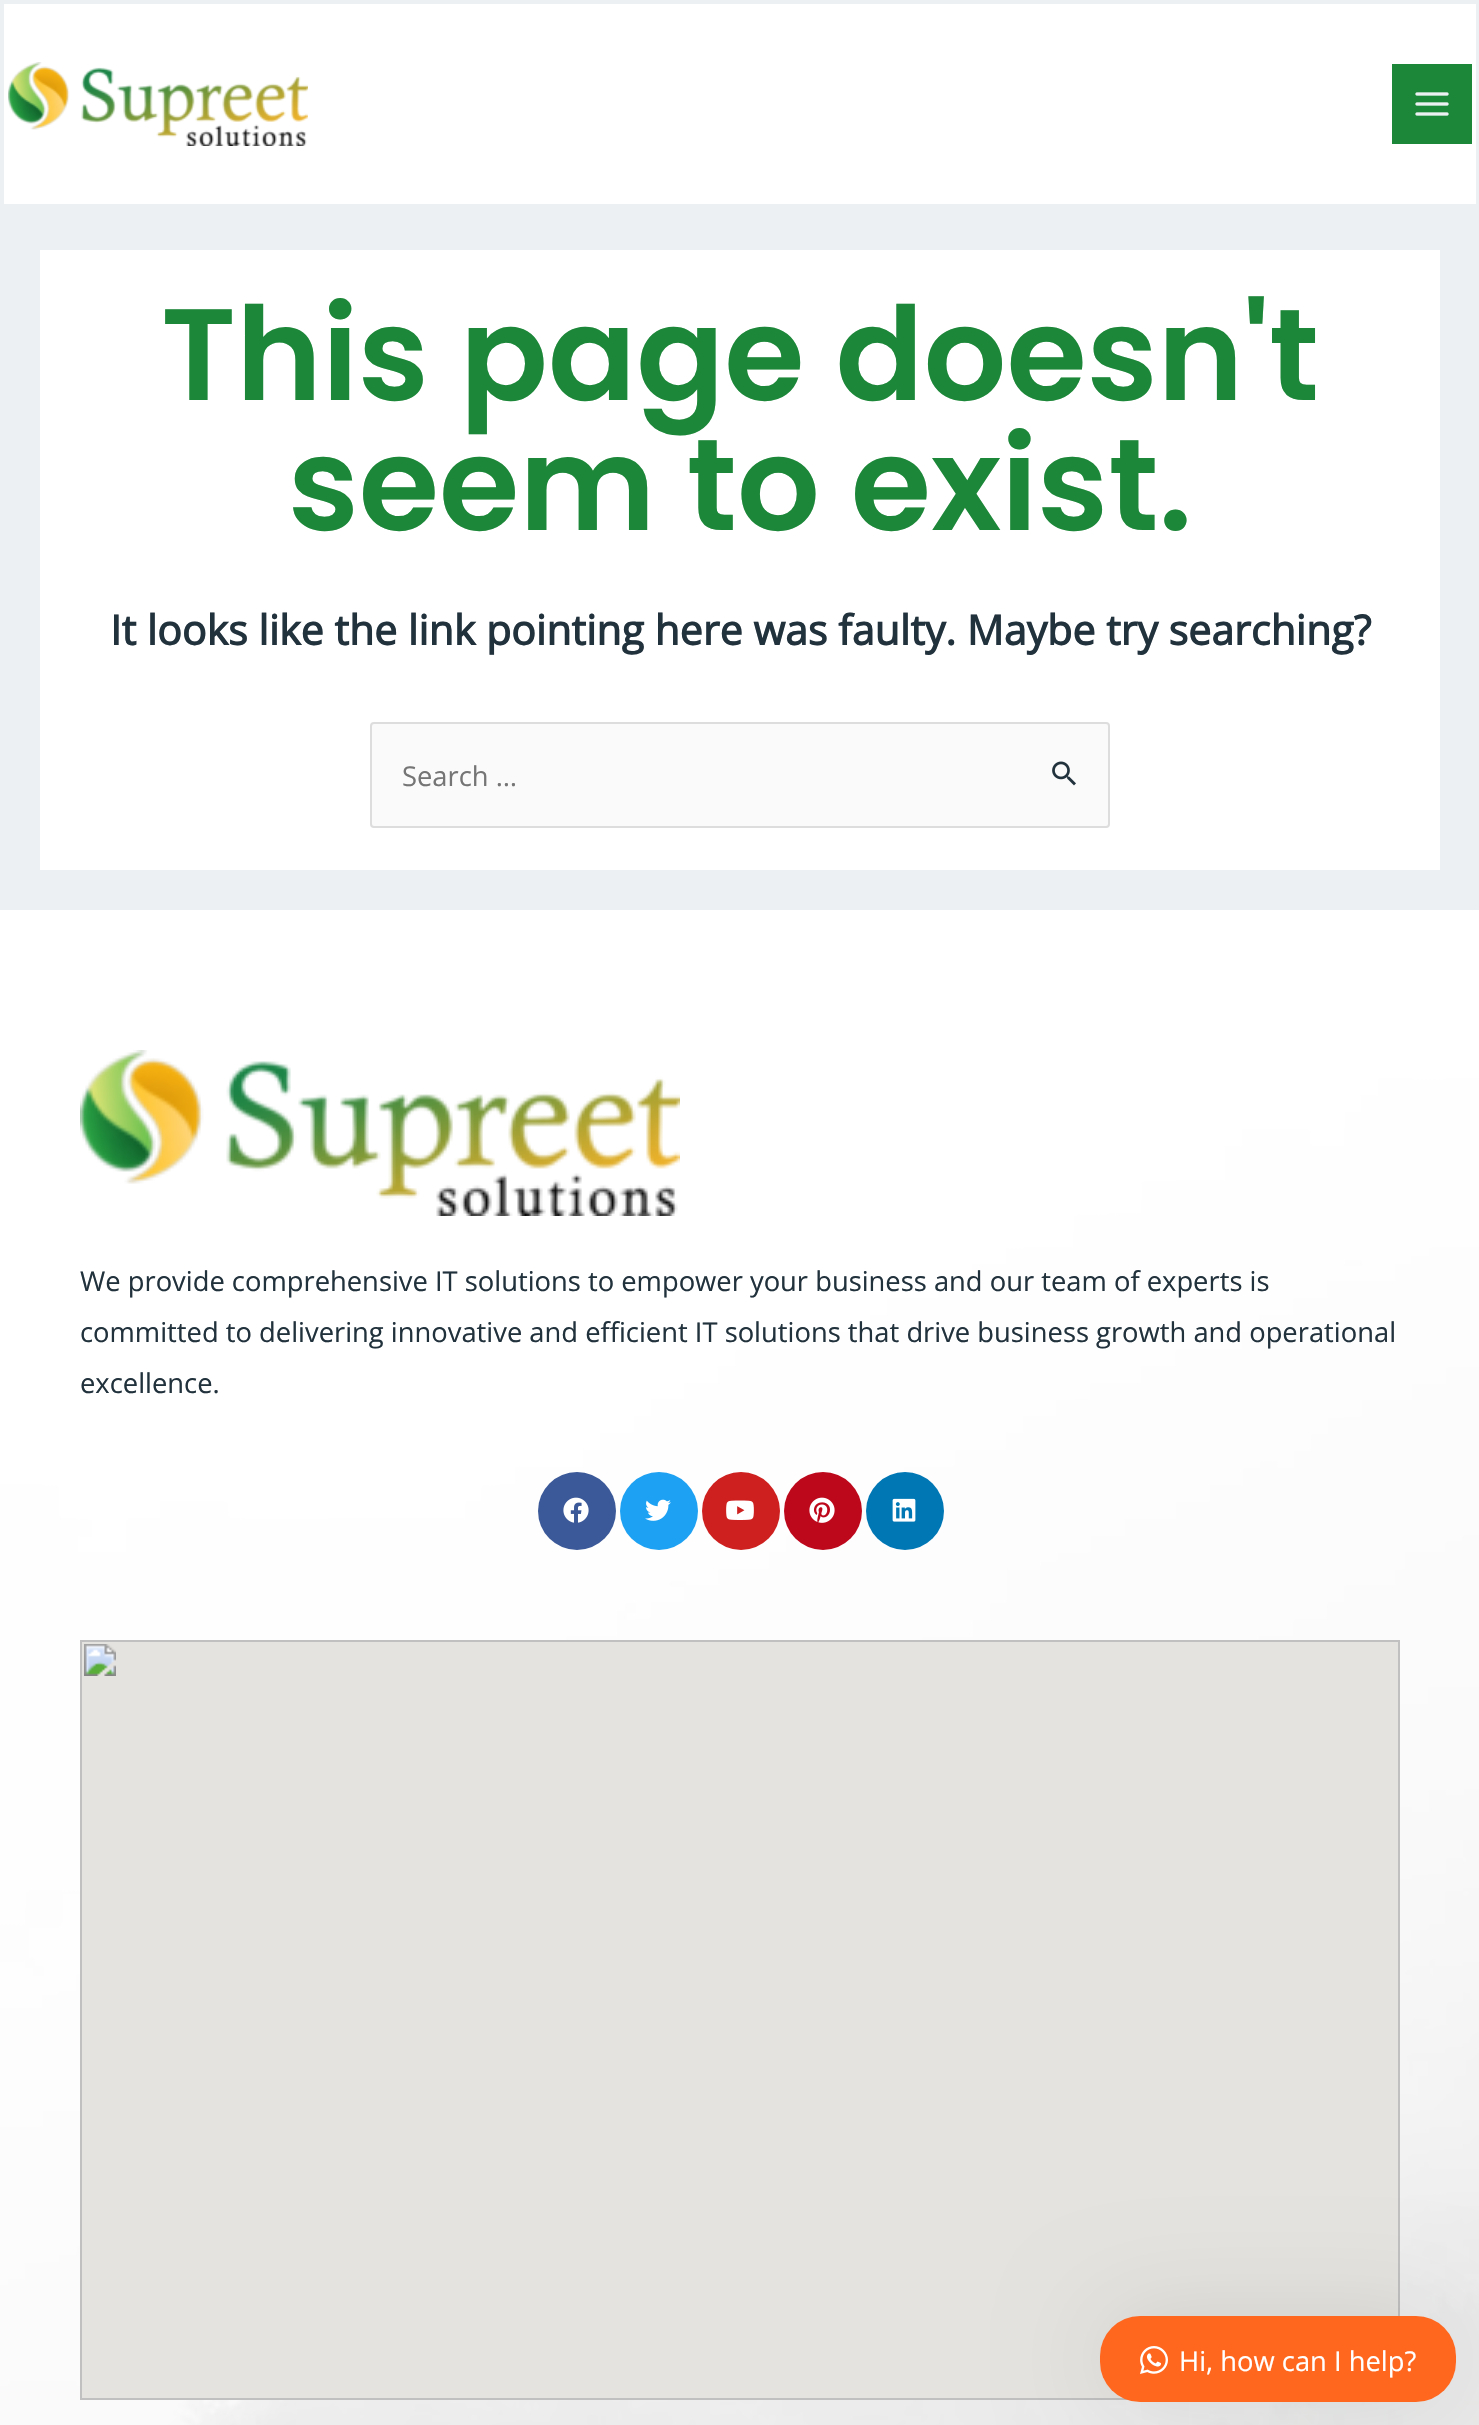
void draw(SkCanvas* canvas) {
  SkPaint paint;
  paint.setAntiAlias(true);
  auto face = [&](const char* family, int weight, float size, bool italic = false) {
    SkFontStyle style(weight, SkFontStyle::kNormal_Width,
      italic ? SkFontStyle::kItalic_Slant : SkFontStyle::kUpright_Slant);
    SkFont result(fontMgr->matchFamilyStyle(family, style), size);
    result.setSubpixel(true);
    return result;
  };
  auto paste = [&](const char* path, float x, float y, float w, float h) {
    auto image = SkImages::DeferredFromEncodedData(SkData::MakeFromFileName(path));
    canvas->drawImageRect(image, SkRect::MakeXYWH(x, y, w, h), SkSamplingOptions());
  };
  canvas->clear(0xffecf0f2);
  paint.setColor(0xffffffff);
  canvas->drawRect(SkRect::MakeXYWH(4, 4, 1472, 200), paint);
  paste("img/1.png", 8, 62, 300, 84);
  paint.setColor(0xff1d8739);
  canvas->drawRect(SkRect::MakeXYWH(1392, 64, 80, 80), paint);
  paste("img/2.png", 1415, 92, 34, 24);
  paint.setColor(0xffffffff);
  canvas->drawRect(SkRect::MakeXYWH(40, 250, 1400, 620), paint);
  paint.setColor(0xfffafafa);
  canvas->drawRoundRect(SkRect::MakeXYWH(371, 723, 738, 104), 3, 3, paint);
  paint.setStroke(true);
  paint.setStrokeWidth(2);
  paint.setColor(0xffdddddd);
  canvas->drawRoundRect(SkRect::MakeXYWH(371, 723, 738, 104), 3, 3, paint);
  paste("img/3.png", 1052, 761, 24, 25);
  paste("img/4.png", 0, 910, 1479, 1515);
  paste("img/5.png", 80, 1050, 600, 166);
  paint.setStroke(false);
  paint.setColor(0xff3b5998);
  canvas->drawCircle(577, 1511, 39, paint);
  paste("img/6.png", 563, 1497, 26, 26);
  paint.setColor(0xff1da1f2);
  canvas->drawCircle(659, 1511, 39, paint);
  paste("img/7.png", 645, 1499, 26, 22);
  paint.setColor(0xffcd201f);
  canvas->drawCircle(741, 1511, 39, paint);
  paste("img/8.png", 726, 1500, 28, 20);
  paint.setColor(0xffbd081c);
  canvas->drawCircle(823, 1511, 39, paint);
  paste("img/9.png", 809, 1497, 26, 26);
  paint.setColor(0xff0077b5);
  canvas->drawCircle(905, 1511, 39, paint);
  paste("img/10.png", 892, 1498, 24, 24);
  paste("img/11.png", 80, 1640, 1320, 760);
  paint.setColor(0x1a000000);
  paint.setMaskFilter(SkMaskFilter::MakeBlur(kNormal_SkBlurStyle, 50));
  canvas->drawRoundRect(SkRect::MakeXYWH(1100, 2316, 356, 86), 40, 40, paint);
  paint.setMaskFilter(nullptr);
  paint.setColor(0xffff671f);
  canvas->drawRoundRect(SkRect::MakeXYWH(1100, 2316, 356, 86), 40, 40, paint);
  paste("img/12.png", 1140, 2346, 28, 28);
  auto f0 = face("Poppins", 600, 130);
  paint.setColor(0xff1d8739);
  canvas->drawString("This page doesn't", 161, 400, f0, paint);
  canvas->drawString("seem to exist.", 288, 530, f0, paint);
  auto f1 = face("Open Sans", 700, 41.05f);
  paint.setColor(0xff22323d);
  canvas->drawString("It looks like the link pointing here was faulty. Maybe try searching?", 110, 645, f1, paint);
  auto f2 = face("Open Sans", 400, 27.35f);
  paint.setColor(0xff757575);
  canvas->drawString("Search …", 402, 786, f2, paint);
  paint.setColor(0xff22323d);
  {
    const struct { const char* s; float x, y; } items[] = {
      {"We provide comprehensive IT solutions to empower your business and our team of experts is", 80, 1291},
      {"committed to delivering innovative and efficient IT solutions that drive business growth and operational", 80, 1342},
      {"excellence.", 80, 1393},
    };
    for (auto [s, x, y] : items) {
      canvas->drawString(s, x, y, f2, paint);
    }
  }
  paint.setColor(0xffffffff);
  canvas->drawString("Hi, how can I help?", 1179, 2371, f2, paint);
}
